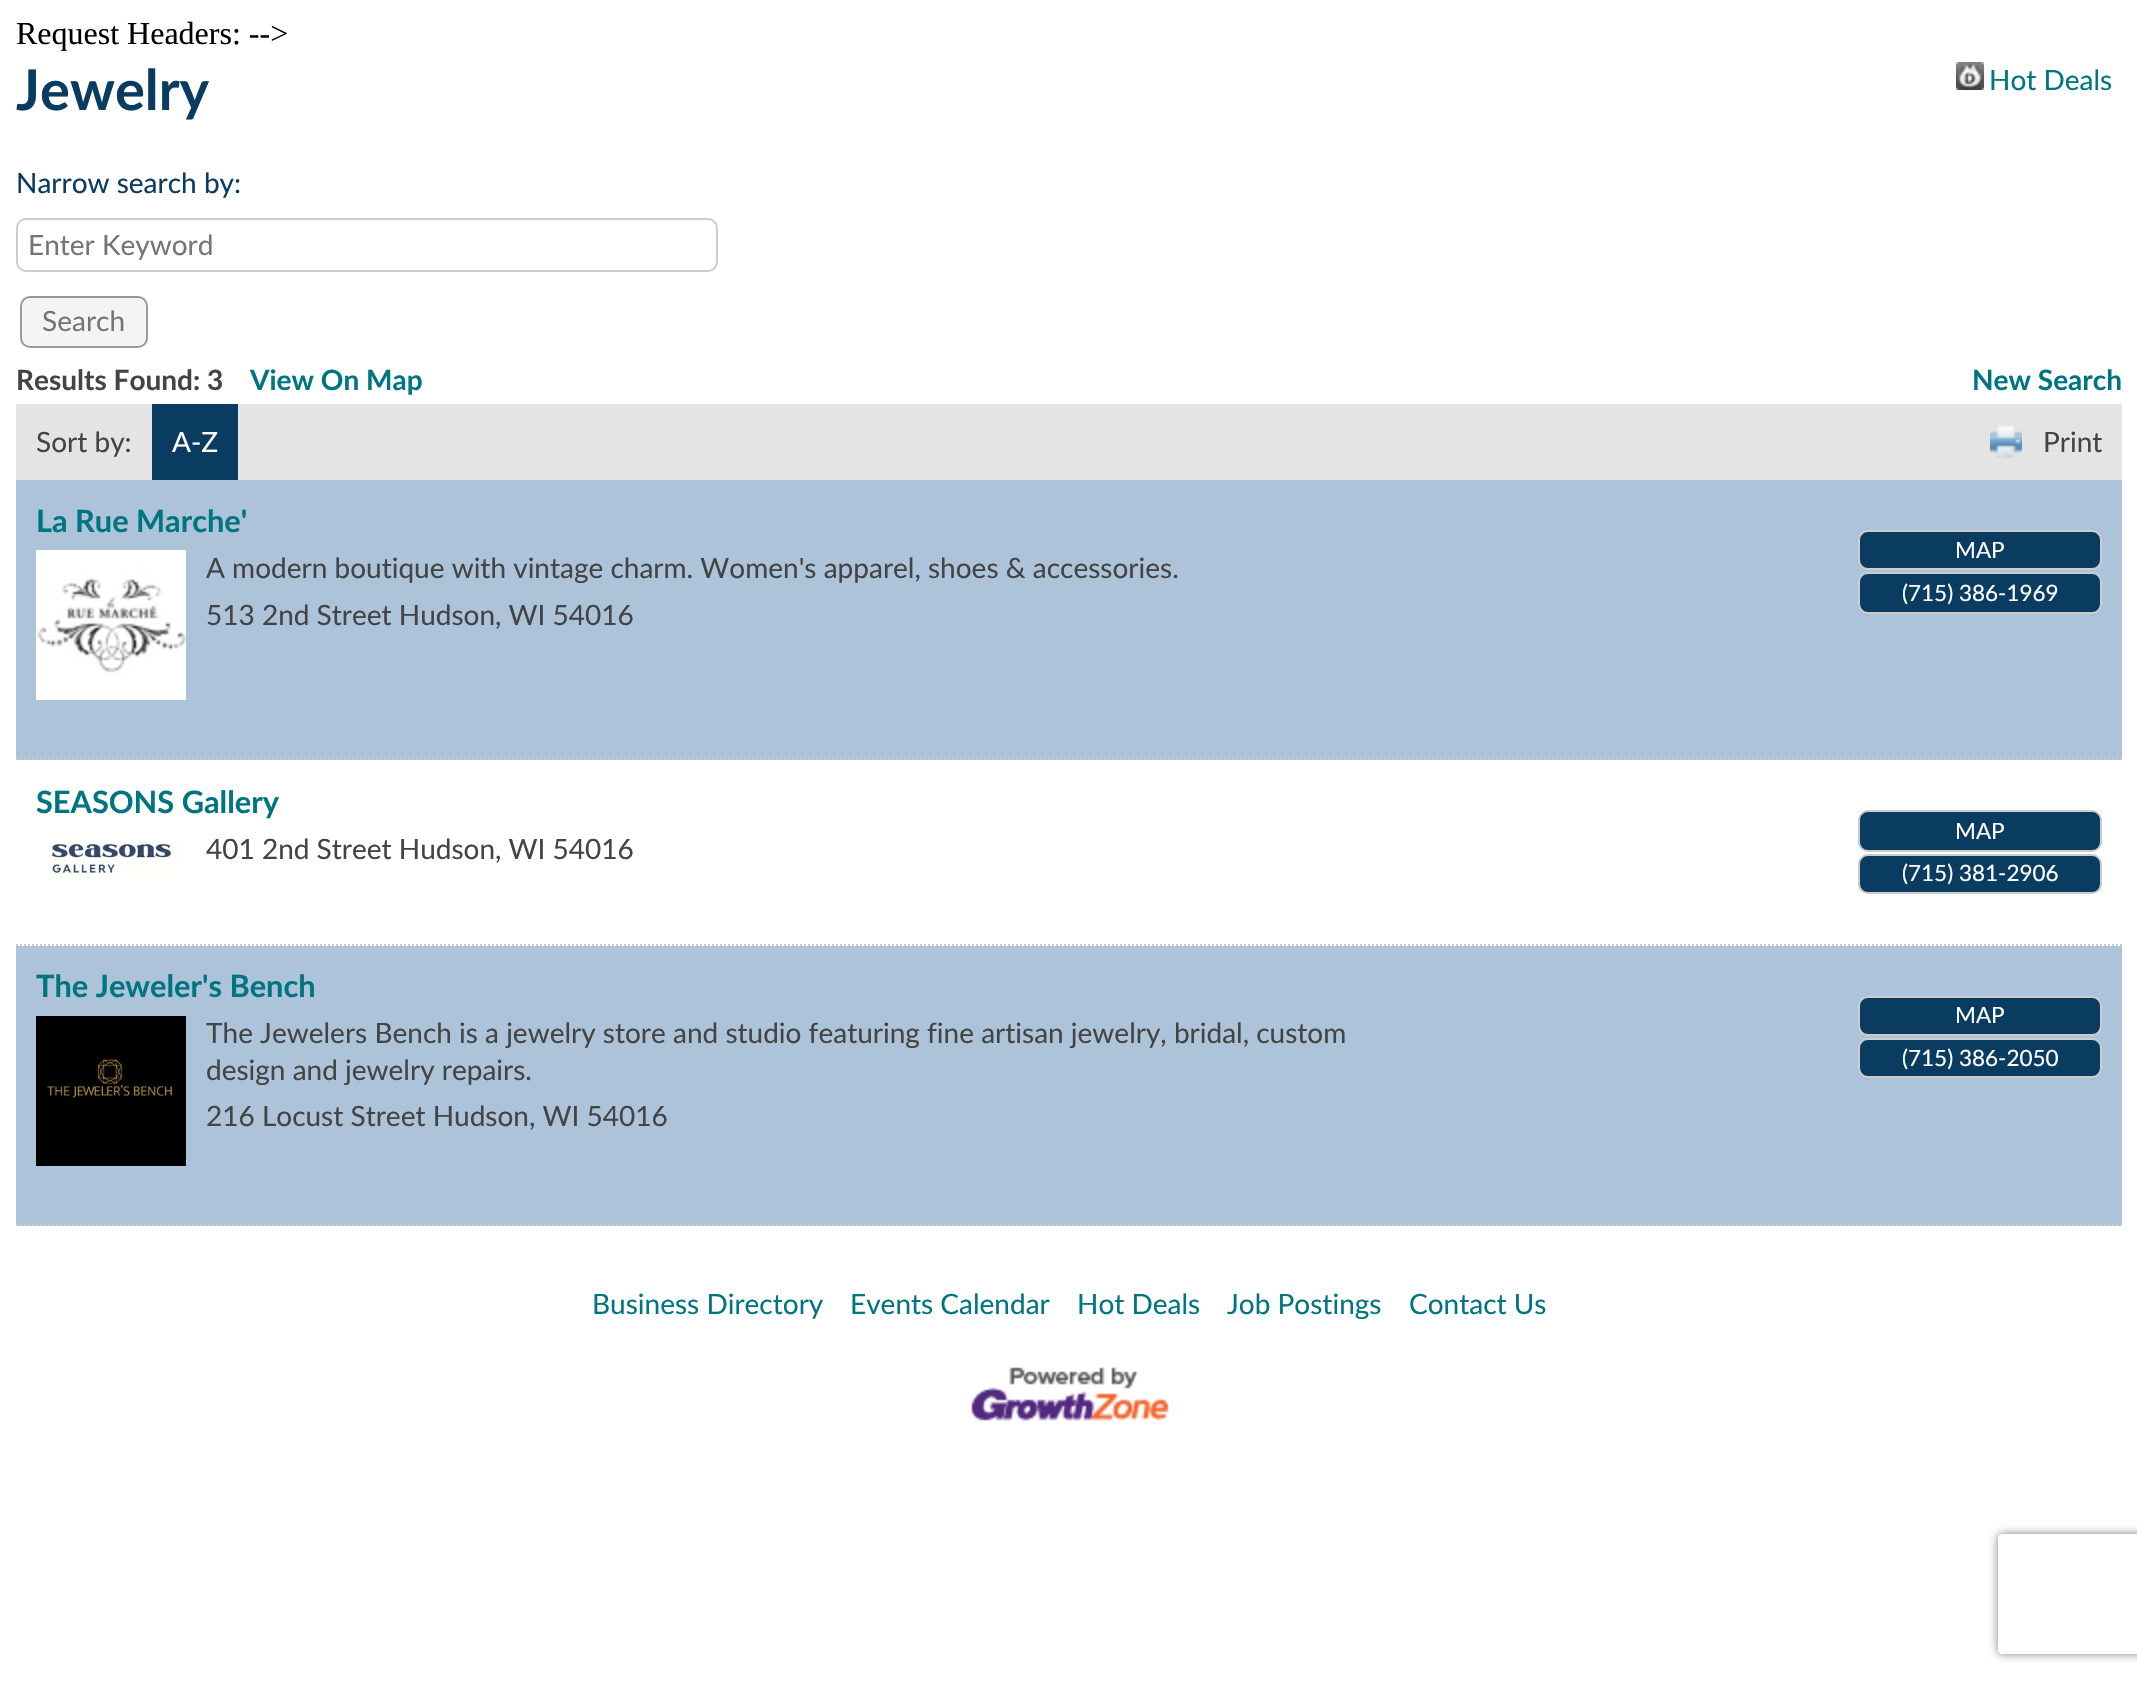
void draw(SkCanvas* canvas) {
  SkPaint paint;
  paint.setAntiAlias(true);
  auto face = [&](const char* family, int weight, float size, bool italic = false) {
    SkFontStyle style(weight, SkFontStyle::kNormal_Width,
      italic ? SkFontStyle::kItalic_Slant : SkFontStyle::kUpright_Slant);
    SkFont result(fontMgr->matchFamilyStyle(family, style), size);
    result.setSubpixel(true);
    return result;
  };
  auto paste = [&](const char* path, float x, float y, float w, float h) {
    auto image = SkImages::DeferredFromEncodedData(SkData::MakeFromFileName(path));
    canvas->drawImageRect(image, SkRect::MakeXYWH(x, y, w, h), SkSamplingOptions());
  };
  auto shape = [&](const char* data, bool evenOdd = false) {
    SkPath result = *SkParsePath::FromSVGString(data);
    if (evenOdd) result.setFillType(SkPathFillType::kEvenOdd);
    return result;
  };
  canvas->clear(0xffffffff);
  paste("img/1.png", 1956, 62, 28, 28);
  paint.setStroke(true);
  paint.setStrokeWidth(2);
  paint.setColor(0xffcccccc);
  canvas->drawRoundRect(SkRect::MakeXYWH(17, 219, 700, 52), 9, 9, paint);
  paint.setStroke(false);
  paint.setColor(0xfff4f4f4);
  canvas->drawRoundRect(SkRect::MakeXYWH(21, 297, 126, 50), 9, 9, paint);
  paint.setStroke(true);
  paint.setColor(0xff999999);
  canvas->drawRoundRect(SkRect::MakeXYWH(21, 297, 126, 50), 9, 9, paint);
  paint.setStroke(false);
  paint.setColor(0xffe4e4e4);
  canvas->drawRect(SkRect::MakeXYWH(16, 404, 2106, 76), paint);
  paint.setColor(0xff0a3b61);
  canvas->drawRect(SkRect::MakeXYWH(152, 404, 86, 76), paint);
  paste("img/2.png", 1990, 426, 32, 32);
  paint.setColor(0xffacc3da);
  canvas->drawRect(SkRect::MakeXYWH(16, 480, 2106, 280), paint);
  paint.setStroke(true);
  paint.setColor(0xffcccccc);
  paint.setPathEffect(SkDashPathEffect::Make({{2, 2}}, 0));
  canvas->drawPath(shape("M16 759H2122"), paint);
  paint.setPathEffect(nullptr);
  paste("img/3.png", 36, 550, 150, 150);
  paint.setStroke(false);
  paint.setColor(0xff0a3b61);
  canvas->drawRoundRect(SkRect::MakeXYWH(1859, 531, 242, 38), 9, 9, paint);
  paint.setStroke(true);
  paint.setColor(0xffcccccc);
  canvas->drawRoundRect(SkRect::MakeXYWH(1859, 531, 242, 38), 9, 9, paint);
  paint.setStroke(false);
  paint.setColor(0xff0a3b61);
  canvas->drawRoundRect(SkRect::MakeXYWH(1859, 573, 242, 40), 9, 9, paint);
  paint.setStroke(true);
  paint.setColor(0xffcccccc);
  canvas->drawRoundRect(SkRect::MakeXYWH(1859, 573, 242, 40), 9, 9, paint);
  paint.setPathEffect(SkDashPathEffect::Make({{2, 2}}, 0));
  canvas->drawPath(shape("M16 945H2122"), paint);
  paint.setPathEffect(nullptr);
  paste("img/4.png", 47, 841, 133, 38);
  paint.setStroke(false);
  paint.setColor(0xff0a3b61);
  canvas->drawRoundRect(SkRect::MakeXYWH(1859, 811, 242, 40), 9, 9, paint);
  paint.setStroke(true);
  paint.setColor(0xffcccccc);
  canvas->drawRoundRect(SkRect::MakeXYWH(1859, 811, 242, 40), 9, 9, paint);
  paint.setStroke(false);
  paint.setColor(0xff0a3b61);
  canvas->drawRoundRect(SkRect::MakeXYWH(1859, 855, 242, 38), 9, 9, paint);
  paint.setStroke(true);
  paint.setColor(0xffcccccc);
  canvas->drawRoundRect(SkRect::MakeXYWH(1859, 855, 242, 38), 9, 9, paint);
  paint.setStroke(false);
  paint.setColor(0xffacc3da);
  canvas->drawRect(SkRect::MakeXYWH(16, 946, 2106, 280), paint);
  paint.setStroke(true);
  paint.setColor(0xffcccccc);
  paint.setPathEffect(SkDashPathEffect::Make({{2, 2}}, 0));
  canvas->drawPath(shape("M16 1225H2122"), paint);
  paint.setPathEffect(nullptr);
  paste("img/5.png", 36, 1016, 150, 150);
  paint.setStroke(false);
  paint.setColor(0xff0a3b61);
  canvas->drawRoundRect(SkRect::MakeXYWH(1859, 997, 242, 38), 9, 9, paint);
  paint.setStroke(true);
  paint.setColor(0xffcccccc);
  canvas->drawRoundRect(SkRect::MakeXYWH(1859, 997, 242, 38), 9, 9, paint);
  paint.setStroke(false);
  paint.setColor(0xff0a3b61);
  canvas->drawRoundRect(SkRect::MakeXYWH(1859, 1039, 242, 38), 9, 9, paint);
  paint.setStroke(true);
  paint.setColor(0xffcccccc);
  canvas->drawRoundRect(SkRect::MakeXYWH(1859, 1039, 242, 38), 9, 9, paint);
  paste("img/6.png", 971, 1367, 198, 54);
  canvas->save();
  canvas->clipPath(shape("M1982 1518H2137V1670H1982ZM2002 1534H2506C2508 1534 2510 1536 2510 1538V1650C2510 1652 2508 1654 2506 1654H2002C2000 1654 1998 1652 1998 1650V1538C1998 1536 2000 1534 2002 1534Z", true), true);
  paint.setStroke(false);
  paint.setColor(0xff808080);
  paint.setMaskFilter(SkMaskFilter::MakeBlur(kNormal_SkBlurStyle, 5));
  canvas->drawRoundRect(SkRect::MakeXYWH(1998, 1534, 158, 120), 4, 4, paint);
  paint.setMaskFilter(nullptr);
  canvas->restore();
  auto f0 = face("Liberation Serif", 400, 32);
  paint.setColor(0xff000000);
  canvas->drawString("Request Headers: -->", 16, 44, f0, paint);
  auto f1 = face("Lato", 700, 56);
  paint.setColor(0xff0a3b61);
  canvas->drawString("Jewelry", 16, 110, f1, paint);
  auto f2 = face("Lato", 400, 28);
  paint.setColor(0xff007582);
  canvas->drawString("Hot Deals", 1989, 90, f2, paint);
  paint.setColor(0xff0a3b61);
  canvas->drawString("Narrow search by:", 16, 193, f2, paint);
  paint.setColor(0xff757575);
  canvas->drawString("Enter Keyword", 28, 255, f2, paint);
  canvas->drawString("Search", 42, 331, f2, paint);
  auto f3 = face("Lato", 700, 28);
  paint.setColor(0xff444444);
  canvas->drawString("Results Found: 3", 16, 390, f3, paint);
  paint.setColor(0xff007582);
  canvas->drawString("View On Map", 250, 390, f3, paint);
  canvas->drawString("New Search", 1972, 390, f3, paint);
  paint.setColor(0xff444444);
  canvas->drawString("Sort by:", 36, 452, f2, paint);
  paint.setColor(0xffffffff);
  canvas->drawString("A-Z", 172, 452, f2, paint);
  paint.setColor(0xff444444);
  canvas->drawString("Print", 2043, 452, f2, paint);
  auto f4 = face("Lato", 700, 30.75f);
  paint.setColor(0xff007582);
  canvas->drawString("La Rue Marche'", 36, 532, f4, paint);
  paint.setColor(0xff444444);
  canvas->drawString("A modern boutique with vintage charm. Women's apparel, shoes & accessories.", 206, 578, f2, paint);
  canvas->drawString("513 2nd Street Hudson, WI 54016", 206, 625, f2, paint);
  auto f5 = face("Lato", 400, 22.5f);
  paint.setColor(0xffffffff);
  canvas->drawString("MAP", 1955, 558, f5, paint);
  canvas->drawString("(715) 386-1969", 1902, 601, f5, paint);
  paint.setColor(0xff007582);
  canvas->drawString("SEASONS Gallery", 36, 813, f4, paint);
  paint.setColor(0xff444444);
  canvas->drawString("401 2nd Street Hudson, WI 54016", 206, 859, f2, paint);
  paint.setColor(0xffffffff);
  canvas->drawString("MAP", 1955, 839, f5, paint);
  canvas->drawString("(715) 381-2906", 1902, 881, f5, paint);
  paint.setColor(0xff007582);
  canvas->drawString("The Jeweler's Bench", 36, 997, f4, paint);
  paint.setColor(0xff444444);
  {
    const struct { const char* s; float x, y; } items[] = {
      {"The Jewelers Bench is a jewelry store and studio featuring fine artisan jewelry, bridal, custom", 206, 1043},
      {"design and jewelry repairs.", 206, 1080},
      {"216 Locust Street Hudson, WI 54016", 206, 1126},
    };
    for (auto [s, x, y] : items) {
      canvas->drawString(s, x, y, f2, paint);
    }
  }
  paint.setColor(0xffffffff);
  canvas->drawString("MAP", 1955, 1023, f5, paint);
  canvas->drawString("(715) 386-2050", 1902, 1066, f5, paint);
  paint.setColor(0xff007582);
  {
    const struct { const char* s; float x, y; } items[] = {
      {"Business Directory", 592, 1314},
      {"Events Calendar", 850, 1314},
      {"Hot Deals", 1077, 1314},
      {"Job Postings", 1227, 1314},
      {"Contact Us", 1409, 1314},
    };
    for (auto [s, x, y] : items) {
      canvas->drawString(s, x, y, f2, paint);
    }
  }
}
